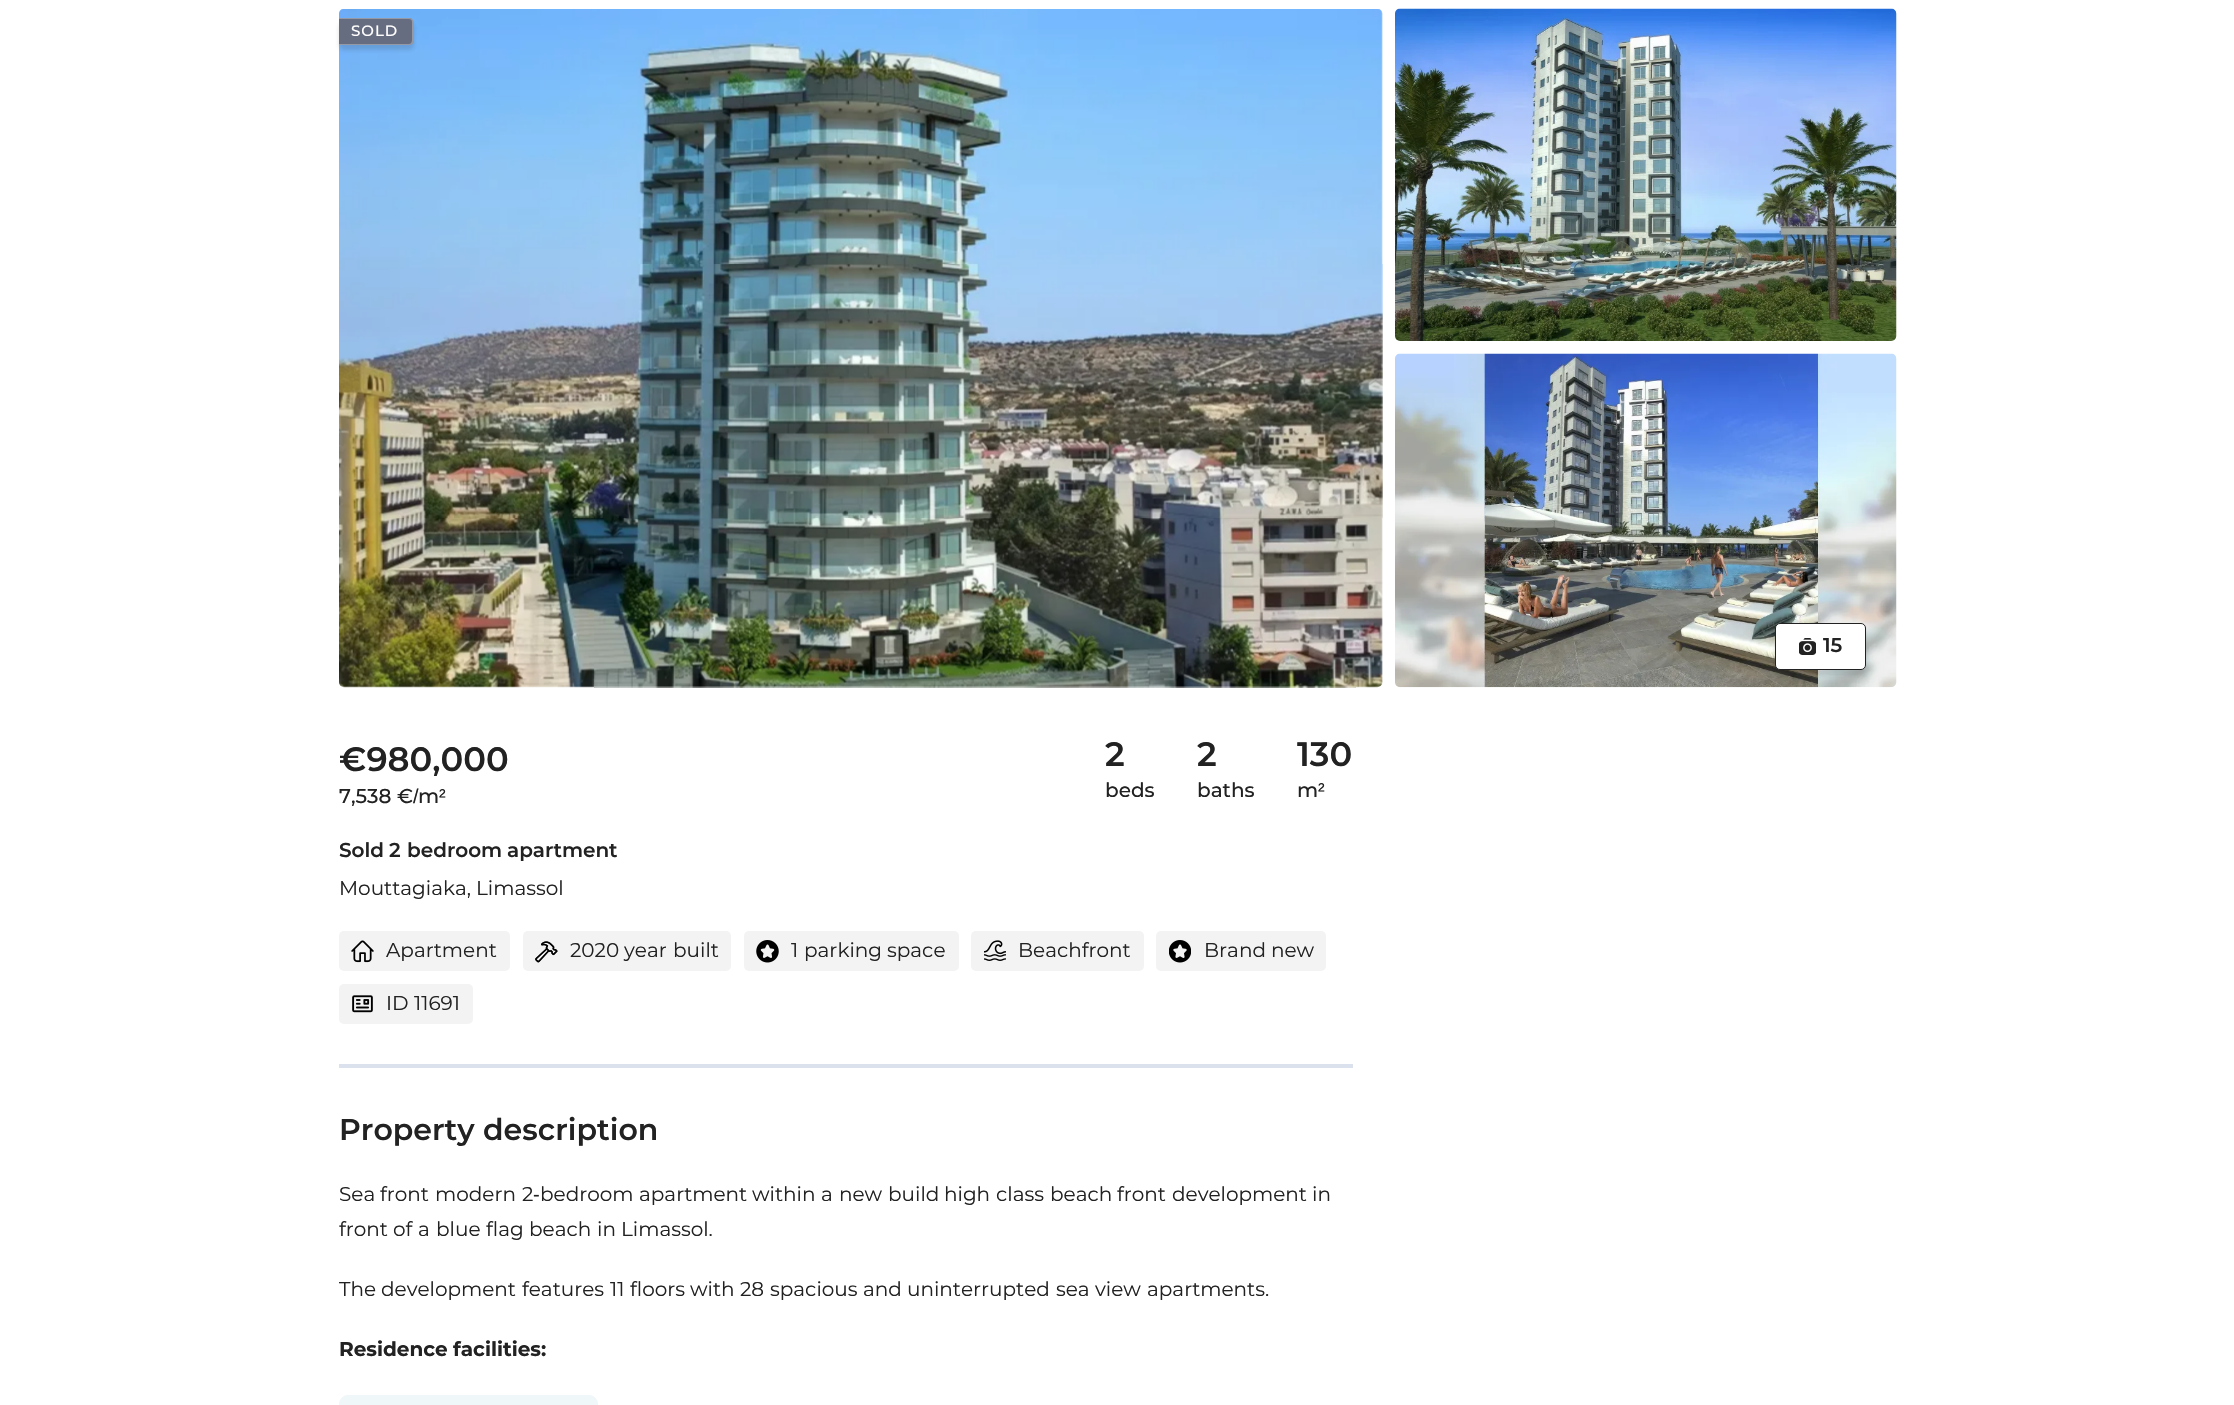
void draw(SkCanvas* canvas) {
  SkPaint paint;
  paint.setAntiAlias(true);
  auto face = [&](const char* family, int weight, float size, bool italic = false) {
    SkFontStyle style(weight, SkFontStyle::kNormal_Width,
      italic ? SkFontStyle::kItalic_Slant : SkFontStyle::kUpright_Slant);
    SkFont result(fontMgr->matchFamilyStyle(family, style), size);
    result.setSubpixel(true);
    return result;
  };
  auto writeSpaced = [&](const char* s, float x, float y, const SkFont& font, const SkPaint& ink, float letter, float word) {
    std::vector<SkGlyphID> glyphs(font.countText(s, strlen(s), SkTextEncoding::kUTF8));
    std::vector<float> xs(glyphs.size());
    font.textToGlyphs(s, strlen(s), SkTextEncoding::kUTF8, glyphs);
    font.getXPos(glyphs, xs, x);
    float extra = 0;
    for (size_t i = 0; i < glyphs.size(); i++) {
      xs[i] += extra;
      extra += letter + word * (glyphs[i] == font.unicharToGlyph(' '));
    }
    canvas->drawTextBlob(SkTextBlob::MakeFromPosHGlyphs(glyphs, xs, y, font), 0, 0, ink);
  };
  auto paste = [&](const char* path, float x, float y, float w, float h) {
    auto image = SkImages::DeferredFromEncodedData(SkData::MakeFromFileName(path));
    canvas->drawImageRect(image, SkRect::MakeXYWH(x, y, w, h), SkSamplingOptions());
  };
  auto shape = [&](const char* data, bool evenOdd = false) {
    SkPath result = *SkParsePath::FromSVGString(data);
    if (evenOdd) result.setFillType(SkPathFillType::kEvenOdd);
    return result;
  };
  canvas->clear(0xffffffff);
  paste("img/1.png", 339, 9, 1044, 679);
  paint.setColor(0x26222222);
  paint.setMaskFilter(SkMaskFilter::MakeBlur(kNormal_SkBlurStyle, 2));
  canvas->drawRoundRect(SkRect::MakeXYWH(339, 23, 75, 27), 5, 5, paint);
  paint.setMaskFilter(nullptr);
  paint.setColor(0xff676d80);
  canvas->drawPath(shape("M339 18H409C412 18 414 20 414 23V40C414 43 412 45 409 45H339Z"), paint);
  paint.setColor(0x4dffffff);
  canvas->drawPath(shape("M339 18H409C412 18 414 20 414 22V40C414 43 412 45 409 45H339ZM339 19H409C411 19 412 20 412 22V40C412 42 411 44 409 44H339Z", true), paint);
  paste("img/2.png", 1395, 8, 502, 333);
  paste("img/3.png", 1395, 353, 502, 335);
  paint.setColor(0x26222222);
  paint.setMaskFilter(SkMaskFilter::MakeBlur(kNormal_SkBlurStyle, 2));
  canvas->drawRoundRect(SkRect::MakeXYWH(1775, 628, 91, 47), 5, 5, paint);
  paint.setMaskFilter(nullptr);
  paint.setColor(0xffffffff);
  canvas->drawRoundRect(SkRect::MakeXYWH(1775.5f, 623.5f, 90, 46), 4.5f, 4.5f, paint);
  paint.setStroke(true);
  paint.setStrokeWidth(1);
  paint.setColor(0xff222222);
  canvas->drawRoundRect(SkRect::MakeXYWH(1775.5f, 623.5f, 90, 46), 4.5f, 4.5f, paint);
  paste("img/4.png", 1799, 638, 17, 17);
  paint.setStroke(false);
  paint.setColor(0xfff3f3f3);
  canvas->drawRoundRect(SkRect::MakeXYWH(339, 931, 171, 40), 5, 5, paint);
  paste("img/5.png", 351, 940, 23, 23);
  canvas->drawRoundRect(SkRect::MakeXYWH(523, 931, 208, 40), 5, 5, paint);
  paste("img/6.png", 535, 941, 23, 22);
  canvas->drawRoundRect(SkRect::MakeXYWH(744, 931, 215, 40), 5, 5, paint);
  paste("img/7.png", 756, 940, 23, 23);
  canvas->drawRoundRect(SkRect::MakeXYWH(971, 931, 173, 40), 5, 5, paint);
  paste("img/8.png", 984, 940, 22, 21);
  canvas->drawRoundRect(SkRect::MakeXYWH(1156, 931, 170, 40), 5, 5, paint);
  paste("img/9.png", 1169, 940, 22, 23);
  canvas->drawRoundRect(SkRect::MakeXYWH(339, 984, 134, 40), 5, 5, paint);
  paste("img/10.png", 352, 995, 21, 18);
  paint.setColor(0xffdbe2ed);
  canvas->drawRect(SkRect::MakeXYWH(339, 1064, 1014, 4), paint);
  paint.setColor(0xfff0f7f9);
  canvas->drawRoundRect(SkRect::MakeXYWH(339.5f, 1395.5f, 258, 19), 8.5f, 8.5f, paint);
  paint.setStroke(true);
  canvas->drawRoundRect(SkRect::MakeXYWH(339.5f, 1395.5f, 258, 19), 8.5f, 8.5f, paint);
  auto f0 = face("Montserrat", 500, 15);
  paint.setStroke(false);
  paint.setColor(0xffffffff);
  writeSpaced("SOLD", 351, 36, f0, paint, 1, 0);
  auto f1 = face("Montserrat", 600, 20);
  paint.setColor(0xff222222);
  canvas->drawString("15", 1823, 652, f1, paint);
  auto f2 = face("Montserrat", 600, 33.75f);
  canvas->drawString("€980,000", 339, 771, f2, paint);
  auto f3 = face("Montserrat", 500, 20);
  canvas->drawString("7,538", 339, 803, f3, paint);
  canvas->drawString("€", 397, 803, f3, paint);
  auto f4 = face("Liberation Sans", 400, 20);
  canvas->drawString("/", 413, 803, f4, paint);
  canvas->drawString("m", 418, 803, f3, paint);
  canvas->drawString("²", 439, 803, f4, paint);
  canvas->drawString("2", 1105, 766, f2, paint);
  canvas->drawString("beds", 1105, 797, f3, paint);
  canvas->drawString("2", 1197, 766, f2, paint);
  canvas->drawString("baths", 1197, 797, f3, paint);
  canvas->drawString("130", 1297, 766, f2, paint);
  canvas->drawString("m", 1297, 797, f3, paint);
  canvas->drawString("²", 1318, 797, f4, paint);
  {
    const struct { const char* s; float x, y; } items[] = {
      {"Sold", 339, 857},
      {"2", 389, 857},
      {"bedroom", 407, 857},
      {"apartment", 507, 857},
    };
    for (auto [s, x, y] : items) {
      canvas->drawString(s, x, y, f1, paint);
    }
  }
  auto f5 = face("Montserrat", 400, 20);
  {
    const struct { const char* s; float x, y; } items[] = {
      {"Mouttagiaka,", 339, 895},
      {"Limassol", 476, 895},
      {"Apartment", 386, 957},
      {"2020", 570, 957},
      {"year", 624, 957},
      {"built", 673, 957},
      {"1", 791, 957},
      {"parking", 804, 957},
      {"space", 887, 957},
      {"Beachfront", 1018, 957},
      {"Brand", 1204, 957},
      {"new", 1271, 957},
      {"ID", 386, 1010},
      {"11691", 414, 1010},
    };
    for (auto [s, x, y] : items) {
      canvas->drawString(s, x, y, f5, paint);
    }
  }
  auto f6 = face("Montserrat", 600, 30);
  canvas->drawString("Property", 339, 1140, f6, paint);
  canvas->drawString("description", 483, 1140, f6, paint);
  {
    const struct { const char* s; float x, y; } items[] = {
      {"Sea", 339, 1201},
      {"front", 380, 1201},
      {"modern", 435, 1201},
      {"2", 522, 1201},
    };
    for (auto [s, x, y] : items) {
      canvas->drawString(s, x, y, f5, paint);
    }
  }
  canvas->drawString("-", 533, 1201, f4, paint);
  {
    const struct { const char* s; float x, y; } items[] = {
      {"bedroom", 540, 1201},
      {"apartment", 639, 1201},
      {"within", 752, 1201},
      {"a", 821, 1201},
      {"new", 839, 1201},
      {"build", 888, 1201},
      {"high", 944, 1201},
      {"class", 996, 1201},
      {"beach", 1050, 1201},
      {"front", 1117, 1201},
      {"development", 1172, 1201},
      {"in", 1312, 1201},
      {"front", 339, 1236},
      {"of", 393, 1236},
      {"a", 418, 1236},
      {"blue", 436, 1236},
      {"flag", 486, 1236},
      {"beach", 529, 1236},
      {"in", 597, 1236},
      {"Limassol.", 621, 1236},
      {"The", 339, 1296},
      {"development", 381, 1296},
      {"features", 522, 1296},
      {"11", 610, 1296},
      {"floors", 630, 1296},
      {"with", 690, 1296},
      {"28", 740, 1296},
      {"spacious", 770, 1296},
      {"and", 863, 1296},
      {"uninterrupted", 907, 1296},
      {"sea", 1056, 1296},
      {"view", 1095, 1296},
      {"apartments.", 1147, 1296},
    };
    for (auto [s, x, y] : items) {
      canvas->drawString(s, x, y, f5, paint);
    }
  }
  auto f7 = face("Montserrat", 700, 20);
  canvas->drawString("Residence", 339, 1356, f7, paint);
  canvas->drawString("facilities:", 453, 1356, f7, paint);
}
